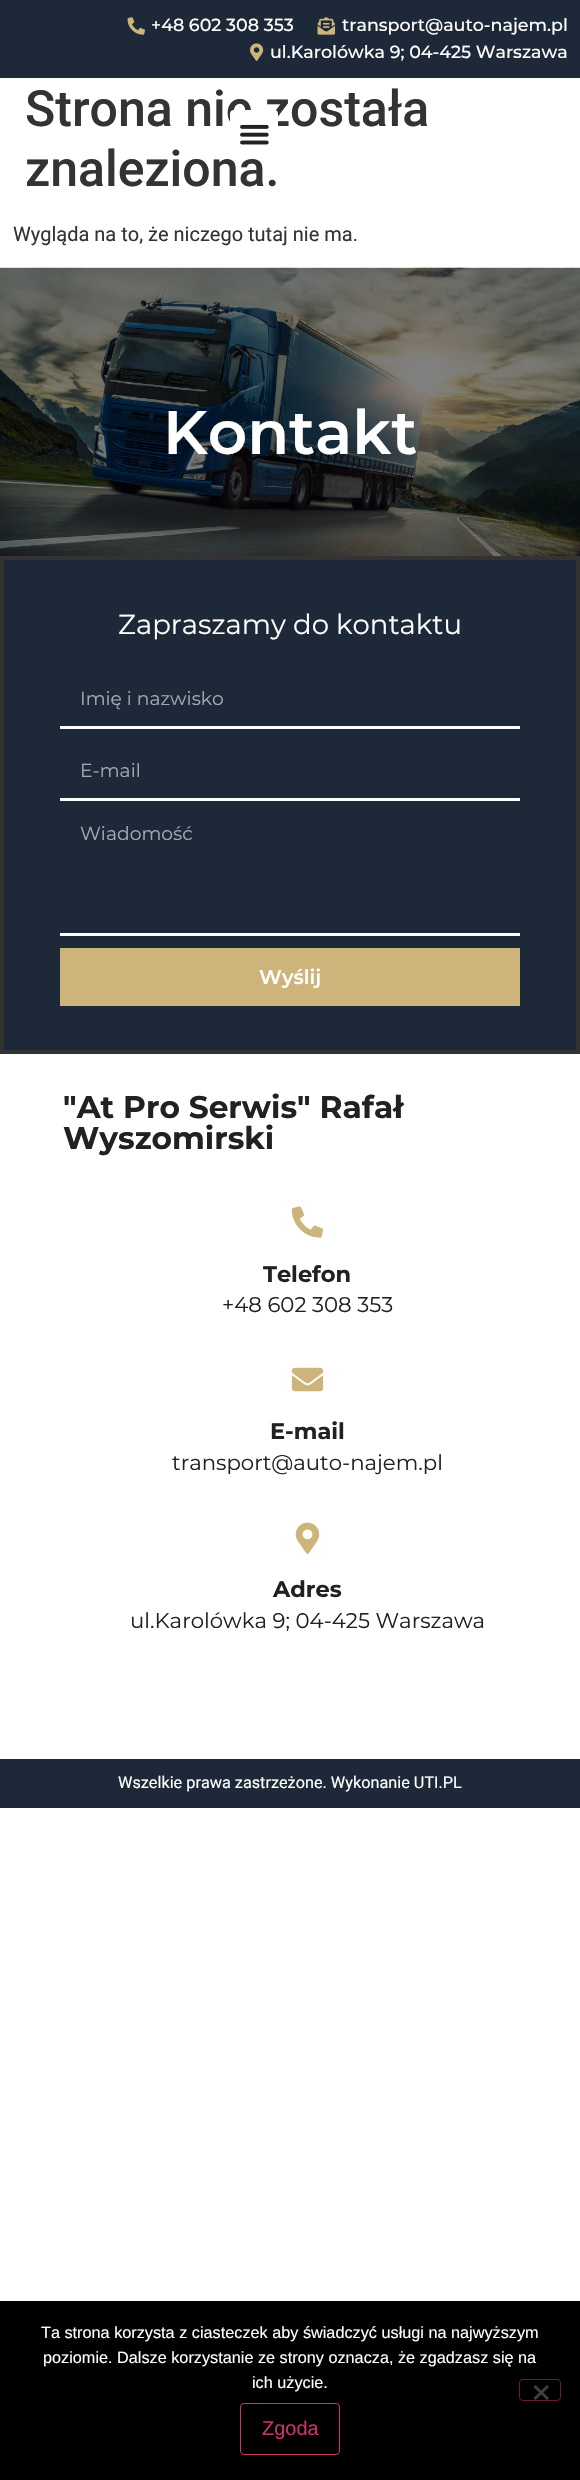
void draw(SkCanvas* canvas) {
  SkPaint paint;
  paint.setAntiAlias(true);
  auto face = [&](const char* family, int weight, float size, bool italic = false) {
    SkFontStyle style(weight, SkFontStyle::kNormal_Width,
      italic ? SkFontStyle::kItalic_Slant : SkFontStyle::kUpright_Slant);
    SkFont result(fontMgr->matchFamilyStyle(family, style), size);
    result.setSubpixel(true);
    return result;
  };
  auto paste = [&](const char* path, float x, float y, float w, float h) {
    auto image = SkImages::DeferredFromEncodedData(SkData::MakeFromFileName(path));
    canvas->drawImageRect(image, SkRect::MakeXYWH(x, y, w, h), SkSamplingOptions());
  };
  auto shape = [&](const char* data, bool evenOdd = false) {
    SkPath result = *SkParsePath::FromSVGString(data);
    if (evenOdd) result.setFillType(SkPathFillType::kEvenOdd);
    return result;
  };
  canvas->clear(0xffffffff);
  paint.setColor(0xff1d2938);
  canvas->drawRect(SkRect::MakeXYWH(0, 0, 580, 78), paint);
  paste("img/1.png", 127, 17, 18, 18);
  paste("img/2.png", 317, 17, 18, 18);
  paste("img/3.png", 250, 43, 14, 18);
  paste("img/5.png", 0, 267, 580, 289);
  canvas->drawRect(SkRect::MakeXYWH(2, 558, 576, 494), paint);
  paint.setStroke(true);
  paint.setStrokeWidth(4);
  paint.setColor(0xff333333);
  canvas->drawRect(SkRect::MakeXYWH(2, 558, 576, 494), paint);
  paint.setStroke(false);
  {
    const struct { float x, y, w, h; SkColor color; } items[] = {
      {60, 726, 460, 3, 0xffffffff},
      {60, 798, 460, 3, 0xffffffff},
      {60, 933, 460, 3, 0xffffffff},
      {60, 948, 460, 58, 0xffccb47a},
    };
    for (auto [x, y, w, h, color] : items) {
      paint.setColor(color);
      canvas->drawRect(SkRect::MakeXYWH(x, y, w, h), paint);
    }
  }
  paste("img/6.png", 291, 1206, 33, 32);
  paste("img/7.png", 291, 1367, 33, 25);
  paste("img/8.png", 295, 1522, 25, 32);
  paint.setColor(0xff1d2938);
  canvas->drawRect(SkRect::MakeXYWH(0, 1759, 580, 49), paint);
  paint.setColor(0xff000000);
  canvas->drawRect(SkRect::MakeXYWH(0, 2301, 580, 179), paint);
  paint.setStroke(true);
  paint.setStrokeWidth(1);
  paint.setColor(0xff661a33);
  canvas->drawRoundRect(SkRect::MakeXYWH(519.5f, 2379.5f, 41, 21), 3.5f, 3.5f, paint);
  paint.setStroke(false);
  paint.setColor(0xff404040);
  canvas->drawPath(shape("M547 2385L549 2387L535.5 2400L533.5 2398Z"), paint);
  canvas->drawPath(shape("M533.5 2387L535.5 2385L549 2398L547 2400Z"), paint);
  paint.setStroke(true);
  paint.setColor(0xffcc3366);
  canvas->drawRoundRect(SkRect::MakeXYWH(240.5f, 2403.5f, 99, 51), 3.5f, 3.5f, paint);
  auto f0 = face("Montserrat", 500, 17.5f);
  paint.setStroke(false);
  paint.setColor(0xffffffff);
  {
    const struct { const char* s; float x, y; } items[] = {
      {"+48 602 308 353", 151, 31},
      {"transport@auto-najem.pl", 342, 31},
      {"ul.Karolówka 9; 04-425 Warszawa", 270, 58},
    };
    for (auto [s, x, y] : items) {
      canvas->drawString(s, x, y, f0, paint);
    }
  }
  auto f1 = face("Roboto", 500, 50);
  paint.setColor(0xff333333);
  canvas->drawString("Strona nie została", 25, 126, f1, paint);
  canvas->drawString("znaleziona.", 25, 186, f1, paint);
  paint.setColor(0xffffffff);
  canvas->drawRoundRect(SkRect::MakeXYWH(230, 110, 48, 48), 4, 4, paint);
  paste("img/4.png", 240, 124, 29, 21);
  auto f2 = face("Roboto", 400, 20);
  paint.setColor(0xff333333);
  canvas->drawString("Wygląda na to, że niczego tutaj nie ma.", 13, 241, f2, paint);
  auto f3 = face("Montserrat", 600, 61.25f);
  paint.setColor(0xffffffff);
  canvas->drawString("Kontakt", 163, 454, f3, paint);
  auto f4 = face("Montserrat", 400, 27.5f);
  canvas->drawString("Zapraszamy do kontaktu", 118, 634, f4, paint);
  auto f5 = face("Montserrat", 400, 18.75f);
  paint.setColor(0xffa5a9af);
  {
    const struct { const char* s; float x, y; } items[] = {
      {"Imię i nazwisko", 80, 705},
      {"E-mail", 80, 777},
      {"Wiadomość", 80, 840},
    };
    for (auto [s, x, y] : items) {
      canvas->drawString(s, x, y, f5, paint);
    }
  }
  auto f6 = face("Montserrat", 600, 20);
  paint.setColor(0xffffffff);
  canvas->drawString("Wyślij", 259, 984, f6, paint);
  auto f7 = face("Montserrat", 700, 31.25f);
  paint.setColor(0xff212121);
  canvas->drawString("\"At Pro Serwis\" Rafał", 63, 1118, f7, paint);
  canvas->drawString("Wyszomirski", 63, 1149, f7, paint);
  auto f8 = face("Montserrat", 700, 22.5f);
  canvas->drawString("Telefon", 263, 1282, f8, paint);
  auto f9 = face("Montserrat", 400, 21.25f);
  canvas->drawString("+48 602 308 353", 222, 1312, f9, paint);
  canvas->drawString("E-mail", 270, 1439, f8, paint);
  canvas->drawString("transport@auto-najem.pl", 172, 1470, f9, paint);
  canvas->drawString("Adres", 273, 1597, f8, paint);
  canvas->drawString("ul.Karolówka 9; 04-425 Warszawa", 130, 1628, f9, paint);
  auto f10 = face("Roboto", 400, 16.25f);
  paint.setColor(0xffffffff);
  canvas->drawString("Wszelkie prawa zastrzeżone. Wykonanie UTI.PL", 118, 1788, f10, paint);
  auto f11 = face("Liberation Sans", 400, 16.25f);
  {
    const struct { const char* s; float x, y; } items[] = {
      {"Ta strona korzysta z ciasteczek aby świadczyć usługi na najwyższym", 41, 2338},
      {"poziomie. Dalsze korzystanie ze strony oznacza, że zgadzasz się na", 43, 2363},
      {"ich użycie.", 252, 2388},
    };
    for (auto [s, x, y] : items) {
      canvas->drawString(s, x, y, f11, paint);
    }
  }
  auto f12 = face("Liberation Sans", 400, 20);
  paint.setColor(0xffcc3366);
  canvas->drawString("Zgoda", 262, 2435, f12, paint);
}
